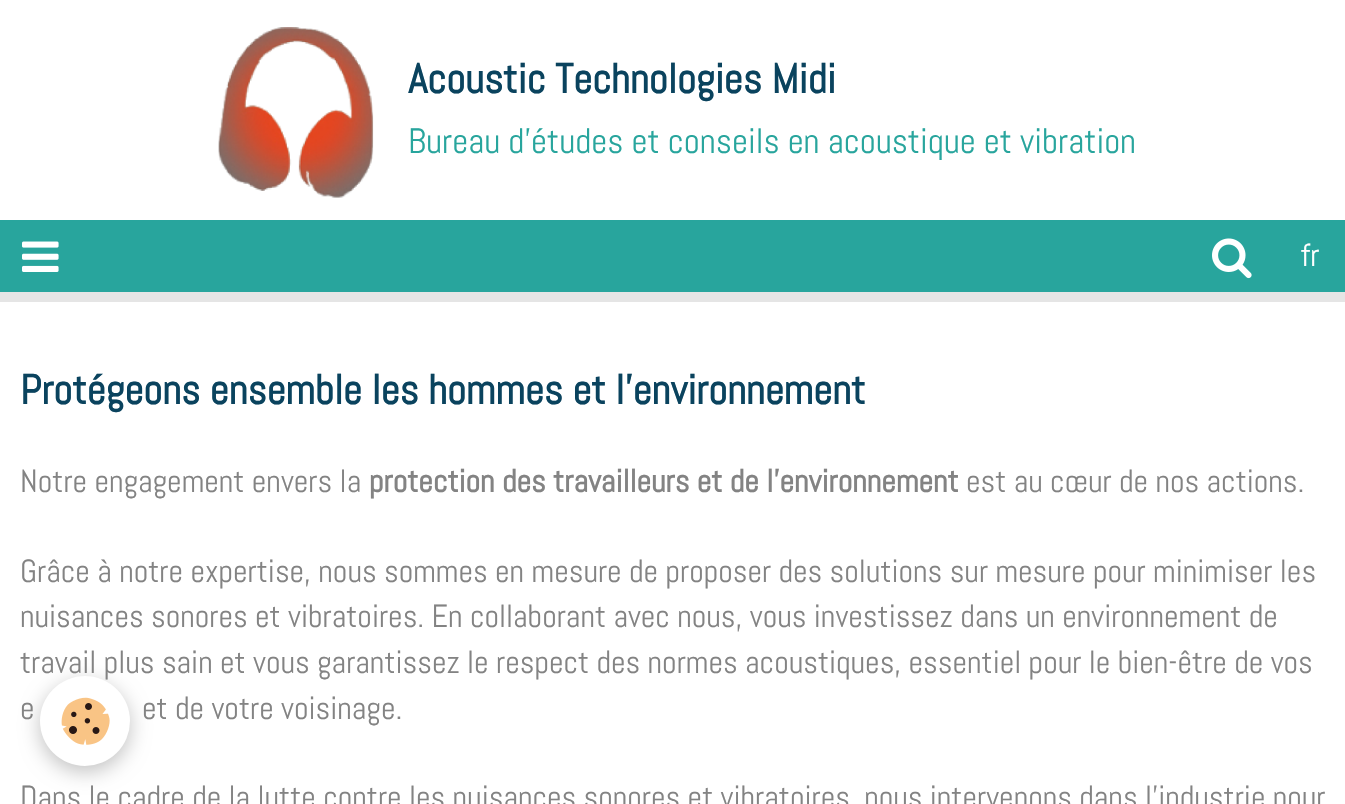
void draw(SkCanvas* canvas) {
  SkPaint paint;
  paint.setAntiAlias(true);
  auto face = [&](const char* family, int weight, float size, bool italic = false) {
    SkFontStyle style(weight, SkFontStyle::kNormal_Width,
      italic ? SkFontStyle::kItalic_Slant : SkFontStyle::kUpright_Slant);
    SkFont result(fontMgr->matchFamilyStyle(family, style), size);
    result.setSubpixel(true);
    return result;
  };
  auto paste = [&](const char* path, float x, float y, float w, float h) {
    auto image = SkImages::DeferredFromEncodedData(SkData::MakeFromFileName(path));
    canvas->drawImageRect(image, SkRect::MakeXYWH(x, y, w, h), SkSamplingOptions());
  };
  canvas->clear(0xffffffff);
  paint.setColor(0x1a000000);
  canvas->drawRect(SkRect::MakeXYWH(0, 292, 1345, 10), paint);
  paste("img/1.png", 218, 27, 156, 171);
  paint.setColor(0xff28a59d);
  canvas->drawRect(SkRect::MakeXYWH(0, 220, 1345, 72), paint);
  paste("img/2.png", 22, 241, 37, 31);
  paste("img/3.png", 1212, 238, 40, 41);
  paint.setColor(0x3d000000);
  paint.setMaskFilter(SkMaskFilter::MakeBlur(kNormal_SkBlurStyle, 10));
  canvas->drawRoundRect(SkRect::MakeXYWH(40, 682, 90, 90), 45, 45, paint);
  paint.setMaskFilter(nullptr);
  auto f0 = face("Abel", 700, 41.6f);
  paint.setColor(0xff0a435e);
  canvas->drawString("Acoustic Technologies Midi", 408, 93, f0, paint);
  auto f1 = face("Abel", 400, 35.2f);
  paint.setColor(0xff28a59d);
  canvas->drawString("Bureau d'études et conseils en acoustique et vibration", 408, 153, f1, paint);
  auto f2 = face("Abel", 400, 32);
  paint.setColor(0xffffffff);
  canvas->drawString("fr", 1301, 266, f2, paint);
  paint.setColor(0xff0a435e);
  canvas->drawString("Protégeons ensemble les hommes et l'environnement", 20, 404, f0, paint);
  paint.setColor(0xff838383);
  canvas->drawString("Notre engagement envers la", 20, 492, f2, paint);
  auto f3 = face("Abel", 700, 32);
  canvas->drawString("protection des travailleurs et de l'environnement", 369, 492, f3, paint);
  {
    const struct { const char* s; float x, y; } items[] = {
      {"est au cœur de nos actions.", 966, 492},
      {"Grâce à notre expertise, nous sommes en mesure de proposer des solutions sur mesure pour minimiser les", 20, 582},
      {"nuisances sonores et vibratoires. En collaborant avec nous, vous investissez dans un environnement de", 20, 627},
      {"travail plus sain et vous garantissez le respect des normes acoustiques, essentiel pour le bien-être de vos", 20, 673},
      {"e", 20, 719},
      {"et de votre voisinage.", 142, 719},
      {"Dans le cadre de la lutte contre les nuisances sonores et vibratoires, nous intervenons dans l'industrie pour", 20, 808},
    };
    for (auto [s, x, y] : items) {
      canvas->drawString(s, x, y, f2, paint);
    }
  }
  paint.setColor(0xffffffff);
  canvas->drawCircle(85, 721, 45, paint);
  paste("img/4.png", 61, 697, 49, 48);
}
